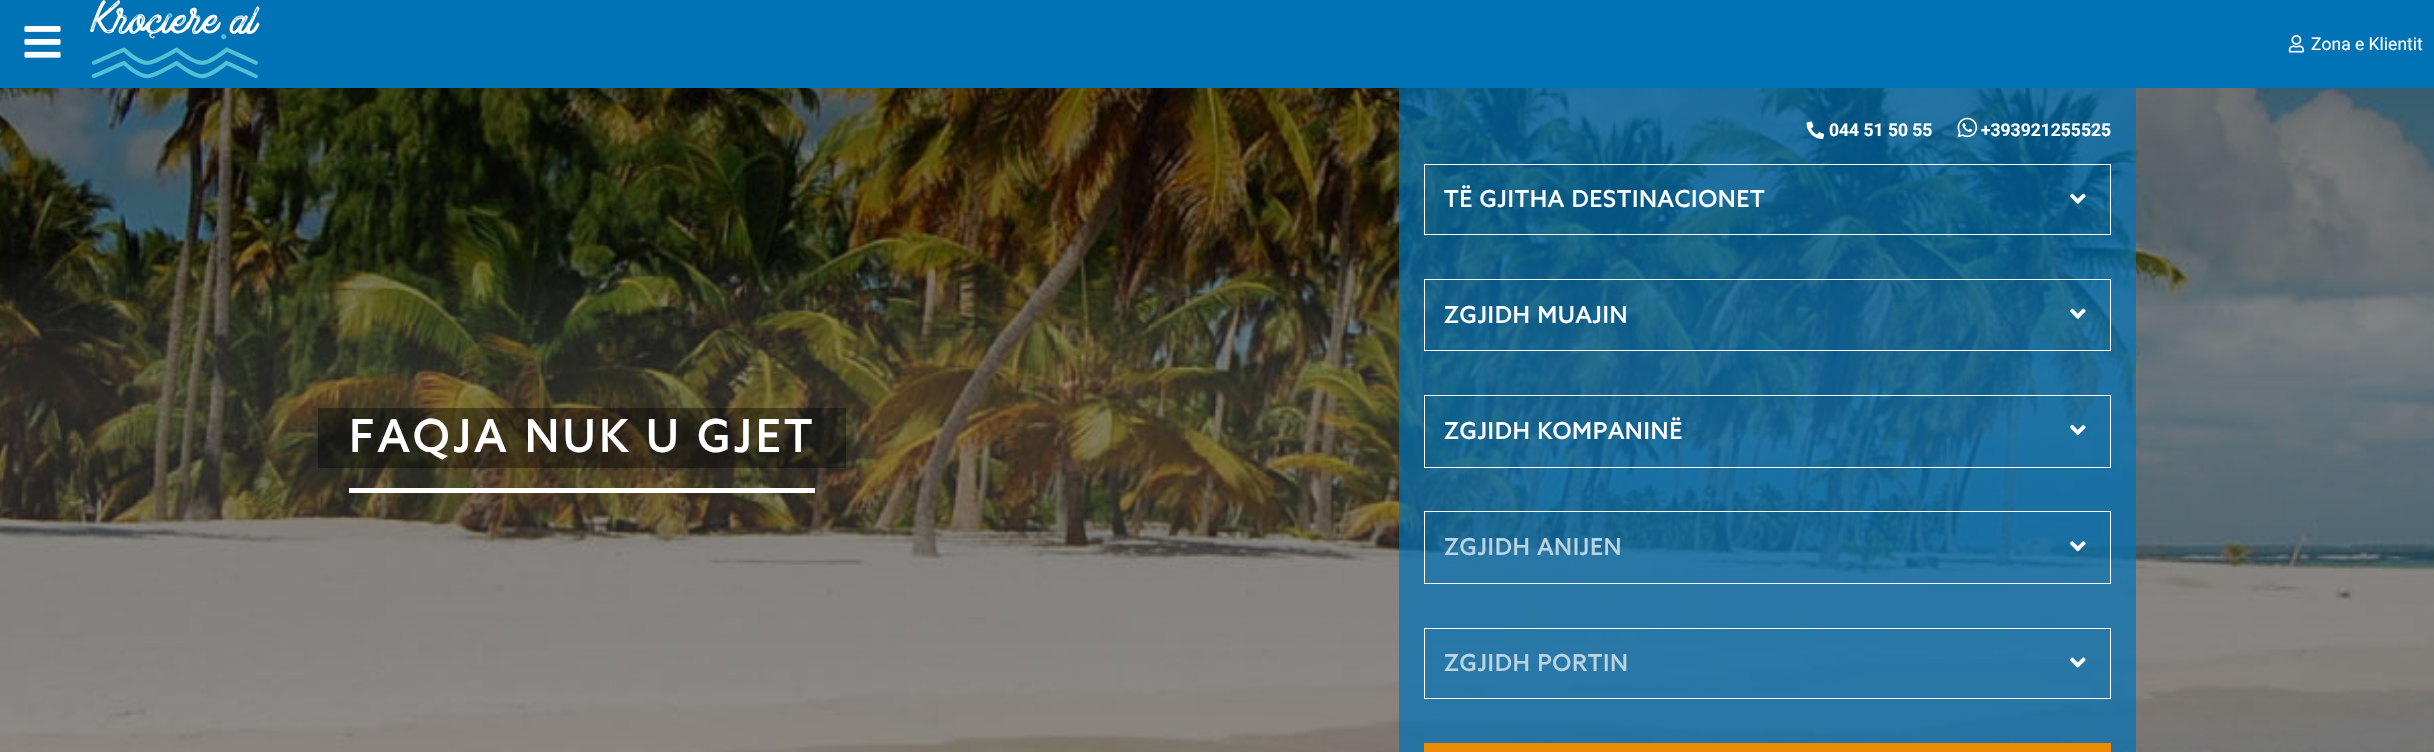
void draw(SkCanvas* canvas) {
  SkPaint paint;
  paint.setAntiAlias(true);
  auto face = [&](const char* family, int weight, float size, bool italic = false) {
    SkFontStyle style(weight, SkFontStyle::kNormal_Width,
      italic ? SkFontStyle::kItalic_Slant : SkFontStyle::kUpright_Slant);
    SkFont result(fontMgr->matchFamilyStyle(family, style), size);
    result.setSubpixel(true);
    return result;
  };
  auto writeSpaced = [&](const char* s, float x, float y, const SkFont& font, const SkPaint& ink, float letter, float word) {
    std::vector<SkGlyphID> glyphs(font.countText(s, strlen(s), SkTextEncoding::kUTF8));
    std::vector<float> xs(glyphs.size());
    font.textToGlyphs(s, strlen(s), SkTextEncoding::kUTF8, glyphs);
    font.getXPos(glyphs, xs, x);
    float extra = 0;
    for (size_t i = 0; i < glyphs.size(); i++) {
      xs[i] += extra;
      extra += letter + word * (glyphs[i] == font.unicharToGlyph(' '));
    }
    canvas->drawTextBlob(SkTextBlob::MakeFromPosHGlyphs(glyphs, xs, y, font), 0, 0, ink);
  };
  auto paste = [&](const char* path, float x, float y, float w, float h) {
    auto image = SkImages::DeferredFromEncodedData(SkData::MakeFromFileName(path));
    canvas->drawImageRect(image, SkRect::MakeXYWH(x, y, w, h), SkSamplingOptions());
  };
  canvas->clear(0xffffffff);
  paint.setColor(0xff0072b6);
  canvas->drawRect(SkRect::MakeXYWH(0, 0, 2434, 88), paint);
  paste("img/1.png", 24, 26, 37, 32);
  paste("img/2.png", 90, 0, 170, 79);
  paste("img/3.png", 2288, 35, 17, 18);
  paste("img/4.png", 0, 88, 2434, 664);
  {
    const struct { float x, y, w, h; SkColor color; } items[] = {
      {318, 408, 528, 60, 0x66000000},
      {349, 488, 466, 5, 0xffffffff},
      {1399, 88, 737, 664, 0xb30072b6},
    };
    for (auto [x, y, w, h, color] : items) {
      paint.setColor(color);
      canvas->drawRect(SkRect::MakeXYWH(x, y, w, h), paint);
    }
  }
  paste("img/5.png", 1806, 121, 19, 18);
  paste("img/6.png", 1957, 117, 21, 21);
  paint.setStroke(true);
  paint.setStrokeWidth(1);
  paint.setColor(0xffffffff);
  canvas->drawRect(SkRect::MakeXYWH(1424.5f, 164.5f, 686, 70), paint);
  paste("img/7.png", 2070, 193, 16, 11);
  canvas->drawRect(SkRect::MakeXYWH(1424.5f, 279.5f, 686, 71), paint);
  paste("img/8.png", 2070, 308, 16, 11);
  canvas->drawRect(SkRect::MakeXYWH(1424.5f, 395.5f, 686, 72), paint);
  paste("img/9.png", 2070, 425, 16, 10);
  canvas->drawRect(SkRect::MakeXYWH(1424.5f, 511.5f, 686, 72), paint);
  paste("img/10.png", 2070, 541, 16, 11);
  canvas->drawRect(SkRect::MakeXYWH(1424.5f, 628.5f, 686, 70), paint);
  paste("img/11.png", 2070, 657, 16, 11);
  paint.setStroke(false);
  paint.setColor(0xffed8b00);
  canvas->drawRect(SkRect::MakeXYWH(1424, 743, 687, 9), paint);
  auto f0 = face("Roboto", 400, 17.5f);
  paint.setColor(0xffffffff);
  canvas->drawString("Zona e Klientit", 2311, 50, f0, paint);
  auto f1 = face("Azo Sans", 700, 43.75f);
  writeSpaced("FAQJA NUK U GJET", 349, 452, f1, paint, 4.4f, 0);
  auto f2 = face("Roboto", 700, 17.5f);
  canvas->drawString("044 51 50 55", 1829, 136, f2, paint);
  canvas->drawString("+393921255525", 1981, 136, f2, paint);
  auto f3 = face("Azo Sans", 700, 22.5f);
  {
    const struct { const char* s; float x, y; } items[] = {
      {"TË GJITHA DESTINACIONET", 1444, 207},
      {"ZGJIDH MUAJIN", 1444, 323},
      {"ZGJIDH KOMPANINË", 1444, 439},
    };
    for (auto [s, x, y] : items) {
      writeSpaced(s, x, y, f3, paint, 1.25f, 0);
    }
  }
  paint.setColor(0xffbcd3e1);
  writeSpaced("ZGJIDH ANIJEN", 1444, 555, f3, paint, 1.25f, 0);
  writeSpaced("ZGJIDH PORTIN", 1444, 671, f3, paint, 1.25f, 0);
}
